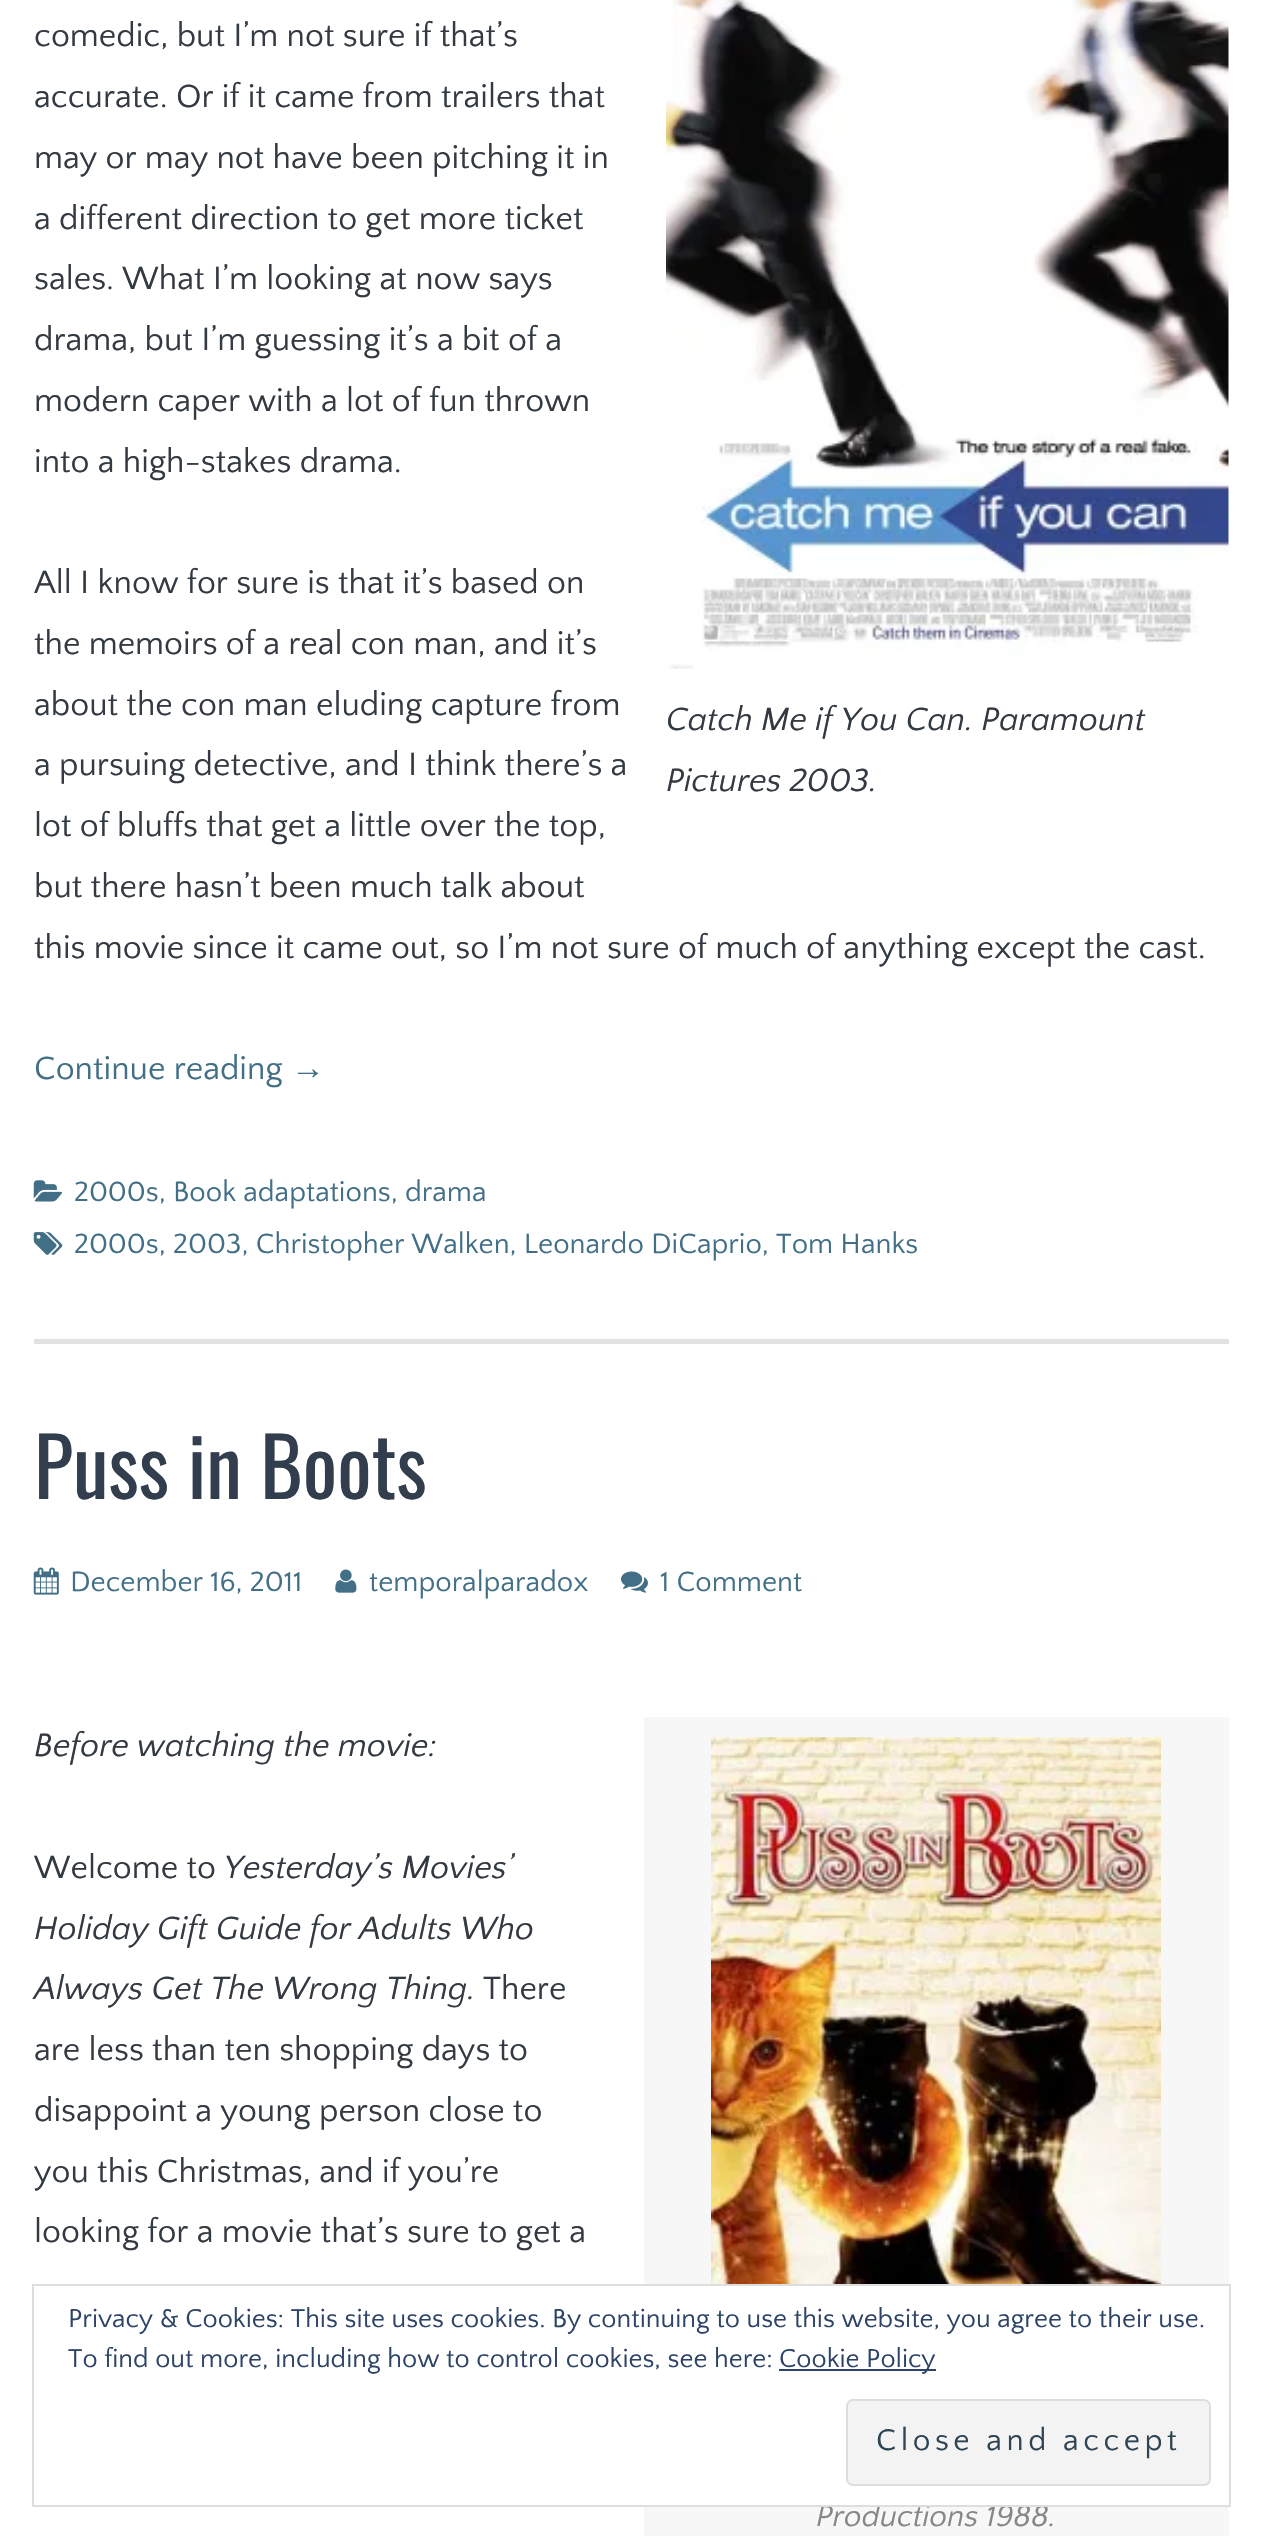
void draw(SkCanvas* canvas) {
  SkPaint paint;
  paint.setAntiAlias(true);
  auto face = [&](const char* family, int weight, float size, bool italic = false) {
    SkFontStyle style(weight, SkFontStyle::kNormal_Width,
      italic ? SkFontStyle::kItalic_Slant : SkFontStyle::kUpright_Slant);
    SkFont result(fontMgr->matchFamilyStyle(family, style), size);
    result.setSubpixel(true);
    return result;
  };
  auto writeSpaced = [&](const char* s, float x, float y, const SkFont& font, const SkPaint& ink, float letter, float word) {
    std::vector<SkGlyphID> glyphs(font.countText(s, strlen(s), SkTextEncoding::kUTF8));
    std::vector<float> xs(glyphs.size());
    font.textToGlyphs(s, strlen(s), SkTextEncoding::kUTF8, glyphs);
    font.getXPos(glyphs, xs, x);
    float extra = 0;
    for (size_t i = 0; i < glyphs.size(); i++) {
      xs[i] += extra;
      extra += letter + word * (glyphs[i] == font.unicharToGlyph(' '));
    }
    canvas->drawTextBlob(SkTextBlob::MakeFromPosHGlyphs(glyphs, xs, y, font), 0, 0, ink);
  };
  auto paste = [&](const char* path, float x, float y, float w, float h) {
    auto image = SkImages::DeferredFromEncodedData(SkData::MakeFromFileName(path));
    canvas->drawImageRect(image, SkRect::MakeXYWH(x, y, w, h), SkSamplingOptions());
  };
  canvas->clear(0xffffffff);
  paint.setColor(0xffe2e2e2);
  canvas->drawRect(SkRect::MakeXYWH(34, 1339, 1195, 5), paint);
  paste("img/1.png", 666, 0, 563, 669);
  paste("img/2.png", 33, 1180, 29, 22);
  paste("img/3.png", 33, 1232, 30, 23);
  paste("img/4.png", 33, 1567, 26, 28);
  paste("img/5.png", 335, 1569, 22, 24);
  paste("img/6.png", 621, 1571, 27, 22);
  paint.setColor(0xfff7f7f7);
  canvas->drawRect(SkRect::MakeXYWH(644, 1717, 585, 819), paint);
  paste("img/7.png", 711, 1737, 450, 547);
  auto f0 = face("Quattrocento Sans", 400, 33.75f);
  paint.setColor(0xff333a42);
  {
    const struct { const char* s; float x, y; } items[] = {
      {"comedic, but I’m not sure if that’s", 34, 46},
      {"accurate. Or if it came from trailers that", 34, 107},
      {"may or may not have been pitching it in", 34, 168},
      {"a different direction to get more ticket", 34, 229},
      {"sales. What I’m looking at now says", 34, 289},
      {"drama, but I’m guessing it’s a bit of a", 34, 350},
      {"modern caper with a lot of fun thrown", 34, 411},
      {"into a high-stakes drama.", 34, 472},
      {"All I know for sure is that it’s based on", 34, 593},
      {"the memoirs of a real con man, and it’s", 34, 654},
      {"about the con man eluding capture from", 34, 715},
      {"a pursuing detective, and I think there’s a", 34, 775},
      {"lot of bluffs that get a little over the top,", 34, 836},
      {"but there hasn’t been much talk about", 34, 897},
      {"this movie since it came out, so I’m not sure of much of anything except the cast.", 34, 958},
    };
    for (auto [s, x, y] : items) {
      canvas->drawString(s, x, y, f0, paint);
    }
  }
  auto f1 = face("Quattrocento Sans", 400, 33.75f, true);
  canvas->drawString("Catch Me if You Can. Paramount", 666, 730, f1, paint);
  canvas->drawString("Pictures 2003.", 666, 791, f1, paint);
  paint.setColor(0xff426f86);
  canvas->drawString("Continue reading", 34, 1079, f0, paint);
  auto f2 = face("Liberation Sans", 400, 33.75f);
  canvas->drawString("→", 291, 1079, f2, paint);
  auto f3 = face("Quattrocento Sans", 400, 29.25f);
  canvas->drawString("2000s, Book adaptations, drama", 74, 1201, f3, paint);
  canvas->drawString("2000s, 2003, Christopher Walken, Leonardo DiCaprio, Tom Hanks", 74, 1253, f3, paint);
  auto f4 = face("Oswald", 400, 81);
  paint.setColor(0xff323e4e);
  canvas->drawString("Puss in Boots", 34, 1499, f4, paint);
  paint.setColor(0xff426f86);
  {
    const struct { const char* s; float x, y; } items[] = {
      {"December 16, 2011", 70, 1591},
      {"temporalparadox", 369, 1591},
      {"1 Comment", 660, 1591},
    };
    for (auto [s, x, y] : items) {
      canvas->drawString(s, x, y, f3, paint);
    }
  }
  paint.setColor(0xff333a42);
  canvas->drawString("Before watching the movie:", 34, 1756, f1, paint);
  canvas->drawString("Welcome to", 34, 1878, f0, paint);
  {
    const struct { const char* s; float x, y; } items[] = {
      {"Yesterday’s Movies’", 224, 1878},
      {"Holiday Gift Guide for Adults Who", 34, 1939},
      {"Always Get The Wrong Thing.", 34, 1999},
    };
    for (auto [s, x, y] : items) {
      canvas->drawString(s, x, y, f1, paint);
    }
  }
  {
    const struct { const char* s; float x, y; } items[] = {
      {"There", 483, 1999},
      {"are less than ten shopping days to", 34, 2060},
      {"disappoint a young person close to", 34, 2121},
      {"you this Christmas, and if you’re", 34, 2182},
      {"looking for a movie that’s sure to get a", 34, 2242},
    };
    for (auto [s, x, y] : items) {
      canvas->drawString(s, x, y, f0, paint);
    }
  }
  auto f5 = face("Quattrocento Sans", 400, 31.5f, true);
  paint.setColor(0xff878787);
  canvas->drawString("Productions 1988.", 816, 2526, f5, paint);
  paint.setColor(0xffffffff);
  canvas->drawRect(SkRect::MakeXYWH(644, 2286, 585, 219), paint);
  paint.setStroke(true);
  paint.setStrokeWidth(2);
  paint.setColor(0xffdedede);
  canvas->drawRect(SkRect::MakeXYWH(33, 2285, 1197, 221), paint);
  auto f6 = face("Quattrocento Sans", 400, 27);
  paint.setStroke(false);
  paint.setColor(0xff2e4467);
  canvas->drawString("Privacy & Cookies: This site uses cookies. By continuing to use this website, you agree to their use.", 68, 2327, f6, paint);
  canvas->drawString("To find out more, including how to control cookies, see here:", 68, 2367, f6, paint);
  canvas->drawRect(SkRect::MakeXYWH(779, 2369, 157, 2), paint);
  canvas->drawString("Cookie Policy", 779, 2367, f6, paint);
  paint.setColor(0xfff3f3f3);
  canvas->drawRoundRect(SkRect::MakeXYWH(847, 2400, 363, 85), 6, 6, paint);
  paint.setStroke(true);
  paint.setColor(0xffdedede);
  canvas->drawRoundRect(SkRect::MakeXYWH(847, 2400, 363, 85), 6, 6, paint);
  auto f7 = face("Quattrocento Sans", 400, 31.5f);
  paint.setStroke(false);
  paint.setColor(0xff2e4453);
  writeSpaced("Close and accept", 876, 2450, f7, paint, 4.5f, 0);
}
